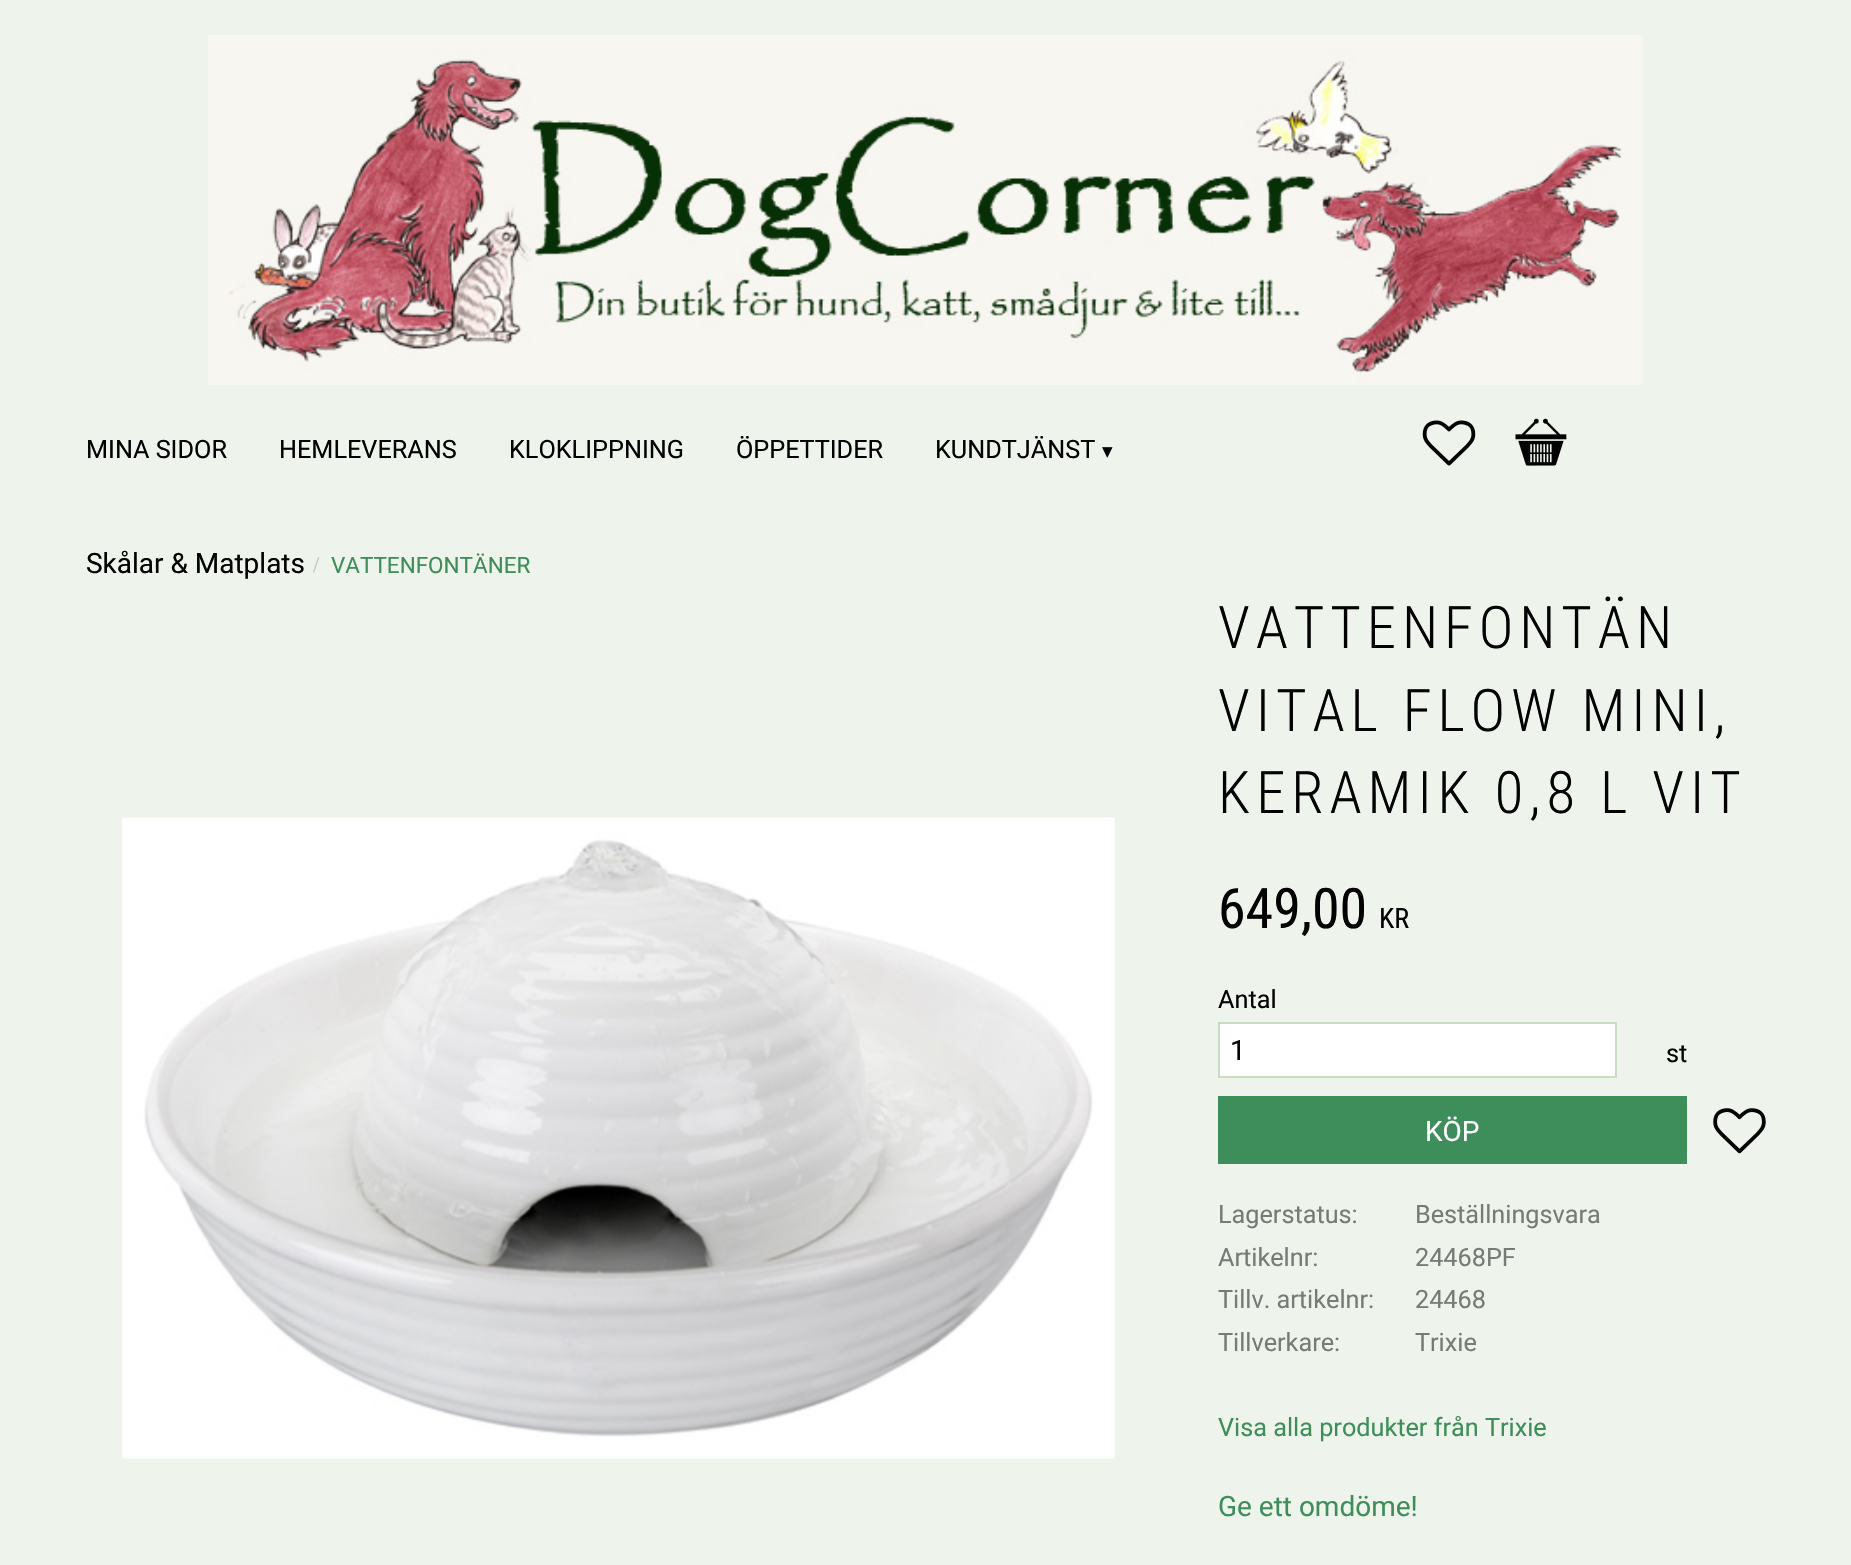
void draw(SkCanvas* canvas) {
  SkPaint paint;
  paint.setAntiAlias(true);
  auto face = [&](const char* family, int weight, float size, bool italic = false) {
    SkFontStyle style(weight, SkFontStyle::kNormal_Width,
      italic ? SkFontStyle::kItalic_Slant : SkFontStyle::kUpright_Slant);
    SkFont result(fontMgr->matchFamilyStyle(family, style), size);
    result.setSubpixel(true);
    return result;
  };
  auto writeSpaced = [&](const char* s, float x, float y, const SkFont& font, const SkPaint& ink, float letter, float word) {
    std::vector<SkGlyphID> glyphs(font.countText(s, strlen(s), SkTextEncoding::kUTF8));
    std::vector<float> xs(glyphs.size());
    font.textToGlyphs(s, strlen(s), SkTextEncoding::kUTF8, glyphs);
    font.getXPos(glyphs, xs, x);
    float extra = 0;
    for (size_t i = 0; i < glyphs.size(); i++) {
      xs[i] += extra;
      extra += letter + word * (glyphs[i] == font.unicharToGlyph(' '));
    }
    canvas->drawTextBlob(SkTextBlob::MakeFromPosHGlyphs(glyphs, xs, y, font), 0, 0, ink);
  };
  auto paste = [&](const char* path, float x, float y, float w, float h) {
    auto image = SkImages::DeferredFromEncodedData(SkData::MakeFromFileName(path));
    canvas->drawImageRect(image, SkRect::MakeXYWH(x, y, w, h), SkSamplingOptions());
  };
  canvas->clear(0xffeef4eb);
  paste("img/1.png", 208, 35, 1435, 350);
  paste("img/2.png", 1422, 420, 54, 46);
  paste("img/3.png", 1515, 418, 52, 48);
  paste("img/4.png", 122, 817, 993, 642);
  paint.setColor(0xffffffff);
  canvas->drawRect(SkRect::MakeXYWH(1219, 1023, 397, 54), paint);
  paint.setStroke(true);
  paint.setStrokeWidth(2);
  paint.setColor(0xffcadcc0);
  canvas->drawRect(SkRect::MakeXYWH(1219, 1023, 397, 54), paint);
  paint.setStroke(false);
  paint.setColor(0xff3d8e5a);
  canvas->drawRect(SkRect::MakeXYWH(1218, 1096, 469, 68), paint);
  paste("img/5.png", 1713, 1108, 53, 46);
  auto f0 = face("Roboto", 400, 25.25f);
  paint.setColor(0xff000000);
  {
    const struct { const char* s; float x, y; } items[] = {
      {"MINA SIDOR", 86, 458},
      {"HEMLEVERANS", 279, 458},
      {"KLOKLIPPNING", 509, 458},
      {"ÖPPETTIDER", 736, 458},
      {"KUNDTJÄNST", 935, 458},
    };
    for (auto [s, x, y] : items) {
      canvas->drawString(s, x, y, f0, paint);
    }
  }
  auto f1 = face("DejaVu Sans", 400, 21);
  canvas->drawString("▾", 1102, 458, f1, paint);
  auto f2 = face("Roboto", 400, 28);
  canvas->drawString("Skålar & Matplats", 86, 573, f2, paint);
  auto f3 = face("Liberation Serif", 400, 22.5f);
  paint.setColor(0xffc0c1bf);
  canvas->drawString("/", 313, 572, f3, paint);
  auto f4 = face("Roboto", 400, 22.5f);
  paint.setColor(0xff3d8e5a);
  canvas->drawString("VATTENFONTÄNER", 331, 573, f4, paint);
  auto f5 = face("Roboto Condensed", 300, 58.75f);
  paint.setColor(0xff000000);
  {
    const struct { const char* s; float x, y; } items[] = {
      {"VATTENFONTÄN", 1218, 648},
      {"VITAL FLOW MINI,", 1218, 731},
      {"KERAMIK 0,8 L VIT", 1218, 813},
    };
    for (auto [s, x, y] : items) {
      writeSpaced(s, x, y, f5, paint, 5.9f, 0);
    }
  }
  auto f6 = face("Roboto Condensed", 400, 56);
  canvas->drawString("649,00", 1218, 928, f6, paint);
  auto f7 = face("Roboto Condensed", 400, 28);
  canvas->drawString("KR", 1379, 928, f7, paint);
  canvas->drawString("Antal", 1218, 1008, f0, paint);
  canvas->drawString("1", 1230, 1060, f2, paint);
  canvas->drawString("st", 1666, 1062, f0, paint);
  paint.setColor(0xffffffff);
  canvas->drawString("KÖP", 1425, 1141, f2, paint);
  paint.setColor(0xff777a76);
  {
    const struct { const char* s; float x, y; } items[] = {
      {"Lagerstatus:", 1218, 1223},
      {"Beställningsvara", 1415, 1223},
      {"Artikelnr:", 1218, 1266},
      {"24468PF", 1415, 1266},
      {"Tillv. artikelnr:", 1218, 1308},
      {"24468", 1415, 1308},
      {"Tillverkare:", 1218, 1351},
      {"Trixie", 1415, 1351},
    };
    for (auto [s, x, y] : items) {
      canvas->drawString(s, x, y, f0, paint);
    }
  }
  paint.setColor(0xff3d8e5a);
  canvas->drawString("Visa alla produkter från Trixie", 1218, 1436, f0, paint);
  canvas->drawString("Ge ett omdöme!", 1218, 1516, f2, paint);
}
